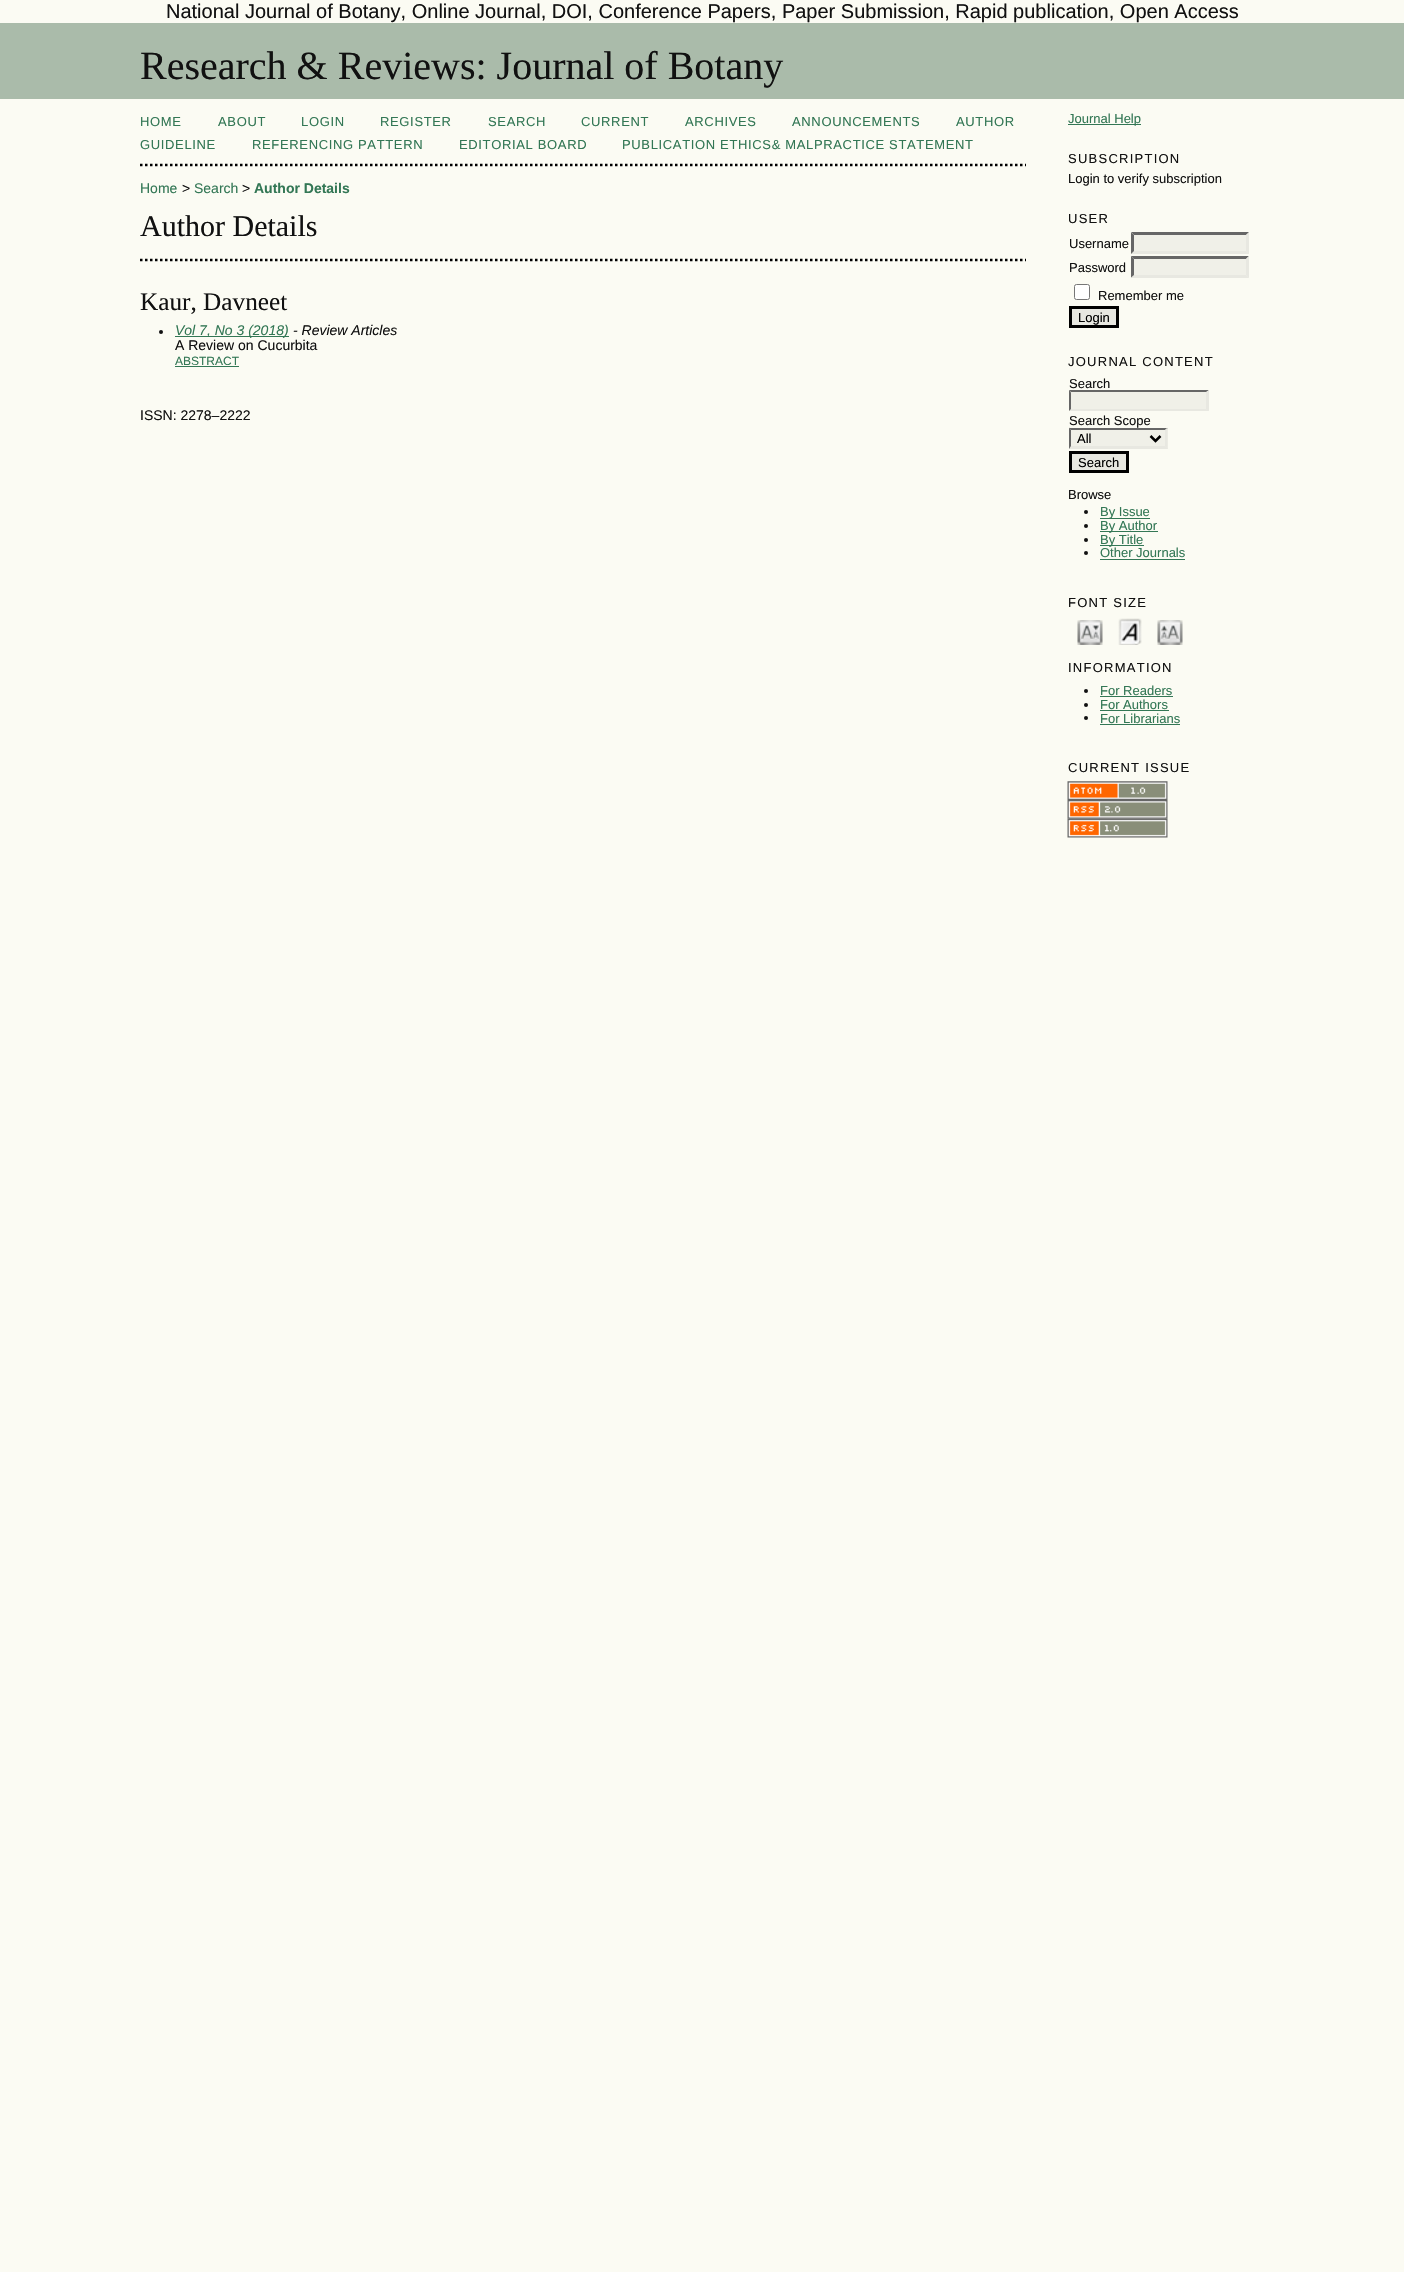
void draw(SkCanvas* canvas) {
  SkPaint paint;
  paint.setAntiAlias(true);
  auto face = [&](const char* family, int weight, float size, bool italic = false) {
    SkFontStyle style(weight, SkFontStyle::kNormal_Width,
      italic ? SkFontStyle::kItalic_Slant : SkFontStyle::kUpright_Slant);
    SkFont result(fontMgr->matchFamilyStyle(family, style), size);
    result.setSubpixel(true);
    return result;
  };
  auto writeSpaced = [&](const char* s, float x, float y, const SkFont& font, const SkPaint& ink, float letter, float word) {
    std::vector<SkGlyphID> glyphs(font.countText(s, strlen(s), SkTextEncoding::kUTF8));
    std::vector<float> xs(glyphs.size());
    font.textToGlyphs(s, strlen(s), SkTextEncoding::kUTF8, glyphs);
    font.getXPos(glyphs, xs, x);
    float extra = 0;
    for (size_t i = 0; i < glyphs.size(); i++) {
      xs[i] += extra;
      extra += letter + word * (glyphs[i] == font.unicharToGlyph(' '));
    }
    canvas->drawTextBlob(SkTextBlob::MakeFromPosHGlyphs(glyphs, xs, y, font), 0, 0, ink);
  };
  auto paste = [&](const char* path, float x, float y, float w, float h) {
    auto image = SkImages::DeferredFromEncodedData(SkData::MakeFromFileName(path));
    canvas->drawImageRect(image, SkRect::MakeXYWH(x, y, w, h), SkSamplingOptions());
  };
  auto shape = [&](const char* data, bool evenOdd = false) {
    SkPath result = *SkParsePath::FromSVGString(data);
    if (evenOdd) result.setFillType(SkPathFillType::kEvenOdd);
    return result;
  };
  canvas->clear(0xfffbfbf3);
  paint.setColor(0xffaabbaa);
  canvas->drawRect(SkRect::MakeXYWH(0, 23, 1404, 76), paint);
  paint.setStroke(true);
  paint.setStrokeWidth(2.5f);
  paint.setColor(0xff000000);
  paint.setPathEffect(SkDashPathEffect::Make({{2.5f, 2.5f}}, 0));
  canvas->drawPath(shape("M140 165H1026"), paint);
  paint.setPathEffect(nullptr);
  paint.setPathEffect(SkDashPathEffect::Make({{2.5f, 2.5f}}, 0));
  canvas->drawPath(shape("M140 260H1026"), paint);
  paint.setPathEffect(nullptr);
  paint.setStroke(false);
  paint.setColor(0xff111111);
  canvas->drawCircle(161, 332, 2, paint);
  {
    const struct { float x, y, w, h; SkColor color; } items[] = {
      {175, 336, 114, 1, 0xff337755},
      {175, 366, 64, 1, 0xff337755},
      {1068, 124, 73, 1, 0xff337755},
      {1131, 233, 118, 21, 0xfff0f0e8},
    };
    for (auto [x, y, w, h, color] : items) {
      paint.setColor(color);
      canvas->drawRect(SkRect::MakeXYWH(x, y, w, h), paint);
    }
  }
  paint.setColor(0xff666666);
  canvas->drawPath(shape("M1131 232H1249L1246 235H1134Z"), paint);
  paint.setColor(0xffe8e8e1);
  canvas->drawPath(shape("M1249 232.5V254L1246 251V235Z"), paint);
  canvas->drawPath(shape("M1249 254H1131L1134 251H1246Z"), paint);
  paint.setColor(0xff666666);
  canvas->drawPath(shape("M1131 254V232.5L1134 235V251Z"), paint);
  paint.setColor(0xfff0f0e8);
  canvas->drawRect(SkRect::MakeXYWH(1131, 256, 118, 22), paint);
  paint.setColor(0xff666666);
  canvas->drawPath(shape("M1131 256H1249L1246 259H1134Z"), paint);
  paint.setColor(0xffe8e8e1);
  canvas->drawPath(shape("M1249 256V277.5L1246 275V259Z"), paint);
  canvas->drawPath(shape("M1249 278H1131L1134 275H1246Z"), paint);
  paint.setColor(0xff666666);
  canvas->drawPath(shape("M1131 277.5V256L1134 259V275Z"), paint);
  paint.setColor(0xffffffff);
  canvas->drawRoundRect(SkRect::MakeXYWH(1074.5f, 284.5f, 15, 15), 2, 2, paint);
  paint.setStroke(true);
  paint.setStrokeWidth(1);
  paint.setColor(0xff767676);
  canvas->drawRoundRect(SkRect::MakeXYWH(1074.5f, 284.5f, 15, 15), 2, 2, paint);
  paint.setStroke(false);
  paint.setColor(0xffe8e8e1);
  canvas->drawRect(SkRect::MakeXYWH(1070.5f, 307.5f, 47, 19), paint);
  paint.setStroke(true);
  paint.setStrokeWidth(3);
  paint.setColor(0xff000000);
  canvas->drawRect(SkRect::MakeXYWH(1070.5f, 307.5f, 47, 19), paint);
  paint.setStroke(false);
  paint.setColor(0xfff0f0e8);
  canvas->drawRect(SkRect::MakeXYWH(1069, 390, 140, 21), paint);
  paint.setColor(0xff666666);
  canvas->drawPath(shape("M1069 390H1209L1206 392H1071Z"), paint);
  paint.setColor(0xffe8e8e1);
  canvas->drawPath(shape("M1209 390V411L1206 409V392.5Z"), paint);
  canvas->drawPath(shape("M1209 411H1069L1071 409H1206Z"), paint);
  paint.setColor(0xff666666);
  canvas->drawPath(shape("M1069 411V390L1071 392.5V409Z"), paint);
  paint.setColor(0xfff0f0e8);
  canvas->drawRect(SkRect::MakeXYWH(1069, 428, 99, 21), paint);
  paint.setColor(0xff666666);
  canvas->drawPath(shape("M1069 428H1168L1165 430H1071Z"), paint);
  paint.setColor(0xffe8e8e1);
  canvas->drawPath(shape("M1167.5 427.5V449L1165 446V430Z"), paint);
  canvas->drawPath(shape("M1168 449H1069L1071 446H1165Z"), paint);
  paint.setStroke(true);
  paint.setStrokeWidth(2.5f);
  paint.setColor(0xff000000);
  canvas->drawPath(shape("M1150.5 436L1155.5 441L1160.5 436"), paint);
  paint.setStroke(false);
  paint.setColor(0xffe8e8e1);
  canvas->drawRect(SkRect::MakeXYWH(1070.5f, 452.5f, 57, 19), paint);
  paint.setStroke(true);
  paint.setStrokeWidth(3);
  paint.setColor(0xff000000);
  canvas->drawRect(SkRect::MakeXYWH(1070.5f, 452.5f, 57, 19), paint);
  paint.setStroke(false);
  paint.setColor(0xff111111);
  canvas->drawCircle(1086, 512, 2, paint);
  paint.setColor(0xff337755);
  canvas->drawRect(SkRect::MakeXYWH(1100, 518, 50, 1), paint);
  paint.setColor(0xff111111);
  canvas->drawCircle(1086, 526, 2, paint);
  paint.setColor(0xff337755);
  canvas->drawRect(SkRect::MakeXYWH(1100, 531, 58, 1), paint);
  paint.setColor(0xff111111);
  canvas->drawCircle(1086, 540, 2, paint);
  paint.setColor(0xff337755);
  canvas->drawRect(SkRect::MakeXYWH(1100, 545, 44, 1), paint);
  paint.setColor(0xff111111);
  canvas->drawCircle(1086, 553, 2, paint);
  paint.setColor(0xff337755);
  canvas->drawRect(SkRect::MakeXYWH(1100, 559, 85, 1), paint);
  paste("img/1.png", 1077, 620, 26, 25);
  paste("img/2.png", 1118, 618, 24, 27);
  paste("img/3.png", 1157, 620, 26, 25);
  paint.setColor(0xff111111);
  canvas->drawCircle(1086, 691, 2, paint);
  paint.setColor(0xff337755);
  canvas->drawRect(SkRect::MakeXYWH(1100, 696, 73, 1), paint);
  paint.setColor(0xff111111);
  canvas->drawCircle(1086, 705, 2, paint);
  paint.setColor(0xff337755);
  canvas->drawRect(SkRect::MakeXYWH(1100, 710, 69, 1), paint);
  paint.setColor(0xff111111);
  canvas->drawCircle(1086, 718, 2, paint);
  paint.setColor(0xff337755);
  canvas->drawRect(SkRect::MakeXYWH(1100, 724, 80, 1), paint);
  paste("img/4.png", 1067, 781, 101, 19);
  paste("img/5.png", 1067, 800, 101, 19);
  paste("img/6.png", 1067, 818, 101, 20);
  auto f0 = face("Liberation Sans", 400, 20);
  paint.setColor(0xff111111);
  canvas->drawString("National Journal of Botany, Online Journal, DOI, Conference Papers, Paper Submission, Rapid publication, Open Access", 166, 18, f0, paint);
  auto f1 = face("Liberation Serif", 400, 40);
  canvas->drawString("Research & Reviews: Journal of Botany", 140, 79, f1, paint);
  auto f2 = face("Liberation Sans", 400, 13);
  paint.setColor(0xff337755);
  {
    const struct { const char* s; float x, y; } items[] = {
      {"HOME", 140, 126},
      {"ABOUT", 218, 126},
      {"LOGIN", 301, 126},
      {"REGISTER", 380, 126},
      {"SEARCH", 488, 126},
      {"CURRENT", 581, 126},
      {"ARCHIVES", 685, 126},
      {"ANNOUNCEMENTS", 792, 126},
      {"AUTHOR", 956, 126},
      {"GUIDELINE", 140, 149},
      {"REFERENCING PATTERN", 252, 149},
      {"EDITORIAL BOARD", 459, 149},
      {"PUBLICATION ETHICS& MALPRACTICE STATEMENT", 622, 149},
    };
    for (auto [s, x, y] : items) {
      writeSpaced(s, x, y, f2, paint, 0.65f, 0);
    }
  }
  auto f3 = face("Liberation Sans", 400, 14);
  canvas->drawString("Home", 140, 193, f3, paint);
  paint.setColor(0xff111111);
  canvas->drawString(">", 182, 193, f3, paint);
  paint.setColor(0xff337755);
  canvas->drawString("Search", 194, 193, f3, paint);
  paint.setColor(0xff111111);
  canvas->drawString(">", 242, 193, f3, paint);
  auto f4 = face("Liberation Sans", 700, 14);
  paint.setColor(0xff337755);
  canvas->drawString("Author Details", 254, 193, f4, paint);
  auto f5 = face("Liberation Serif", 400, 30);
  paint.setColor(0xff111111);
  canvas->drawString("Author Details", 140, 236, f5, paint);
  auto f6 = face("Liberation Serif", 400, 25.25f);
  canvas->drawString("Kaur, Davneet", 140, 310, f6, paint);
  auto f7 = face("Liberation Sans", 400, 14, true);
  paint.setColor(0xff337755);
  canvas->drawString("Vol 7, No 3 (2018)", 175, 335, f7, paint);
  paint.setColor(0xff111111);
  canvas->drawString("- Review Articles", 293, 335, f7, paint);
  canvas->drawString("A Review on Cucurbita", 175, 350, f3, paint);
  auto f8 = face("Liberation Sans", 400, 12);
  paint.setColor(0xff337755);
  canvas->drawString("ABSTRACT", 175, 365, f8, paint);
  paint.setColor(0xff111111);
  canvas->drawString("ISSN: 2278–2222", 140, 420, f3, paint);
  paint.setColor(0xff337755);
  canvas->drawString("Journal Help", 1068, 123, f2, paint);
  paint.setColor(0xff111111);
  writeSpaced("SUBSCRIPTION", 1068, 163, f2, paint, 1.25f, 0);
  canvas->drawString("Login to verify subscription", 1068, 183, f2, paint);
  writeSpaced("USER", 1068, 223, f2, paint, 1.25f, 0);
  {
    const struct { const char* s; float x, y; } items[] = {
      {"Username", 1069, 248},
      {"Password", 1069, 272},
      {"Remember me", 1098, 300},
    };
    for (auto [s, x, y] : items) {
      canvas->drawString(s, x, y, f2, paint);
    }
  }
  paint.setColor(0xff000000);
  canvas->drawString("Login", 1078, 322, f2, paint);
  paint.setColor(0xff111111);
  writeSpaced("JOURNAL CONTENT", 1068, 366, f2, paint, 1.25f, 0);
  canvas->drawString("Search", 1069, 388, f2, paint);
  canvas->drawString("Search Scope", 1069, 425, f2, paint);
  paint.setColor(0xff666666);
  canvas->drawPath(shape("M1069 449V427.5L1071 430V446Z"), paint);
  paint.setColor(0xff000000);
  canvas->drawString("All", 1077, 443, f2, paint);
  canvas->drawString("Search", 1078, 467, f2, paint);
  paint.setColor(0xff111111);
  canvas->drawString("Browse", 1068, 499, f2, paint);
  paint.setColor(0xff337755);
  {
    const struct { const char* s; float x, y; } items[] = {
      {"By Issue", 1100, 516},
      {"By Author", 1100, 530},
      {"By Title", 1100, 544},
      {"Other Journals", 1100, 557},
    };
    for (auto [s, x, y] : items) {
      canvas->drawString(s, x, y, f2, paint);
    }
  }
  paint.setColor(0xff111111);
  writeSpaced("FONT SIZE", 1068, 607, f2, paint, 1.25f, 0);
  writeSpaced("INFORMATION", 1068, 672, f2, paint, 1.25f, 0);
  paint.setColor(0xff337755);
  {
    const struct { const char* s; float x, y; } items[] = {
      {"For Readers", 1100, 695},
      {"For Authors", 1100, 709},
      {"For Librarians", 1100, 723},
    };
    for (auto [s, x, y] : items) {
      canvas->drawString(s, x, y, f2, paint);
    }
  }
  paint.setColor(0xff111111);
  writeSpaced("CURRENT ISSUE", 1068, 772, f2, paint, 1.25f, 0);
}
